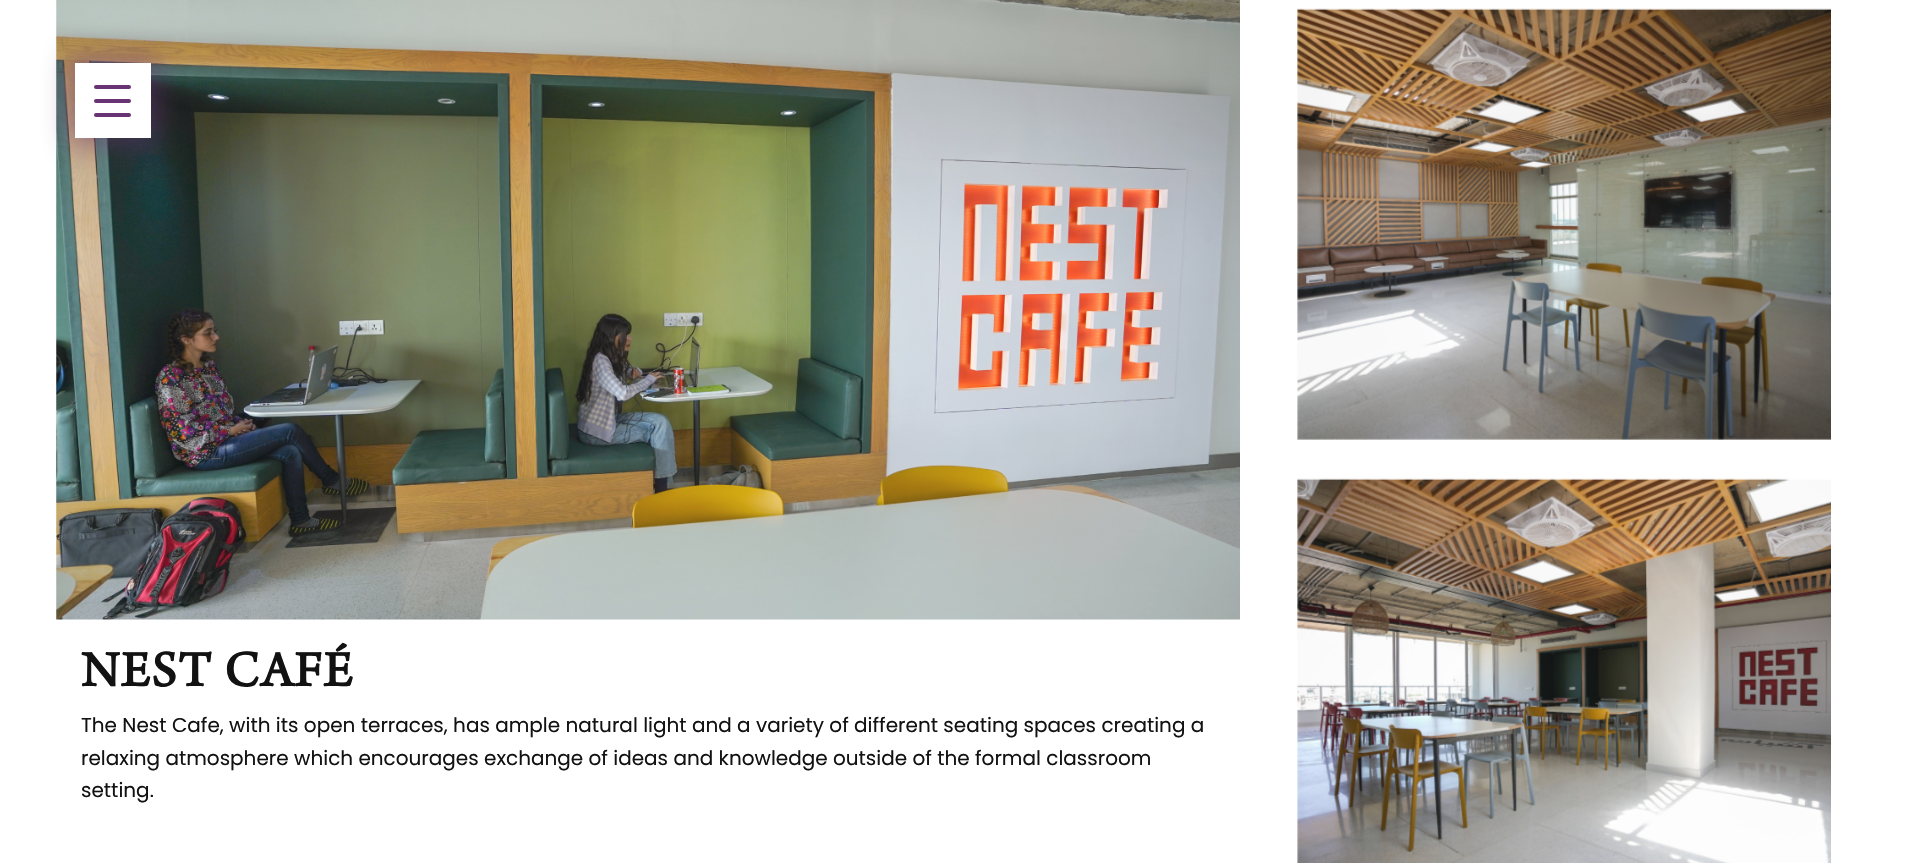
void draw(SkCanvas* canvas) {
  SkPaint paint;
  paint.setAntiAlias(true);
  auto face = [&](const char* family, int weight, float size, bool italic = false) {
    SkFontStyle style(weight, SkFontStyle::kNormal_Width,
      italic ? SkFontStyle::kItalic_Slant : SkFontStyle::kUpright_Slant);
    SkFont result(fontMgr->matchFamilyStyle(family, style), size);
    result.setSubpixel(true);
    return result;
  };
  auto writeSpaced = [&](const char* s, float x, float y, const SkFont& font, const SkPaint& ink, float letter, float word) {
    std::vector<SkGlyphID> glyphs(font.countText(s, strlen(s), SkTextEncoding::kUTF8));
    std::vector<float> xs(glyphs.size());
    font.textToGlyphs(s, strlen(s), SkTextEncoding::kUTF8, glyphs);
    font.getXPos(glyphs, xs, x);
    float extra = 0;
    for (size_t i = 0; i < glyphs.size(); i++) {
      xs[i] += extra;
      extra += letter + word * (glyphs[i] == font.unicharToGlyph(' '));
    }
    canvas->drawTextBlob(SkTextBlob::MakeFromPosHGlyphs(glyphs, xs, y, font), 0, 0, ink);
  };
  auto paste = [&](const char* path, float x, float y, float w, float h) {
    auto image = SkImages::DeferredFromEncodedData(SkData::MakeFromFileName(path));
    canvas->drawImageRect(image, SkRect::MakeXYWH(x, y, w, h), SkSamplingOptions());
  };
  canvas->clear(0xffffffff);
  paste("img/1.png", 56, 0, 1184, 620);
  paint.setColor(0x85693473);
  paint.setMaskFilter(SkMaskFilter::MakeBlur(kNormal_SkBlurStyle, 12.5f));
  canvas->drawRect(SkRect::MakeXYWH(69, 56, 89, 88), paint);
  paint.setMaskFilter(nullptr);
  paint.setColor(0xffffffff);
  canvas->drawRect(SkRect::MakeXYWH(75, 63, 76, 75), paint);
  paint.setColor(0xff693473);
  canvas->drawRoundRect(SkRect::MakeXYWH(94, 85, 37, 4), 2, 2, paint);
  canvas->drawRoundRect(SkRect::MakeXYWH(94, 99, 37, 4), 2, 2, paint);
  canvas->drawRoundRect(SkRect::MakeXYWH(94, 113, 37, 4), 2, 2, paint);
  paste("img/2.png", 1297, 8, 534, 432);
  paste("img/3.png", 1297, 478, 534, 385);
  auto f0 = face("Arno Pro", 700, 52.5f);
  paint.setColor(0xff121212);
  writeSpaced("NEST CAFÉ", 81, 686, f0, paint, 1.25f, 0);
  auto f1 = face("Poppins", 400, 20);
  {
    const struct { const char* s; float x, y; } items[] = {
      {"The Nest Cafe, with its open terraces, has ample natural light and a variety of different seating spaces creating a", 81, 732},
      {"relaxing atmosphere which encourages exchange of ideas and knowledge outside of the formal classroom", 81, 765},
      {"setting.", 81, 797},
    };
    for (auto [s, x, y] : items) {
      canvas->drawString(s, x, y, f1, paint);
    }
  }
}
